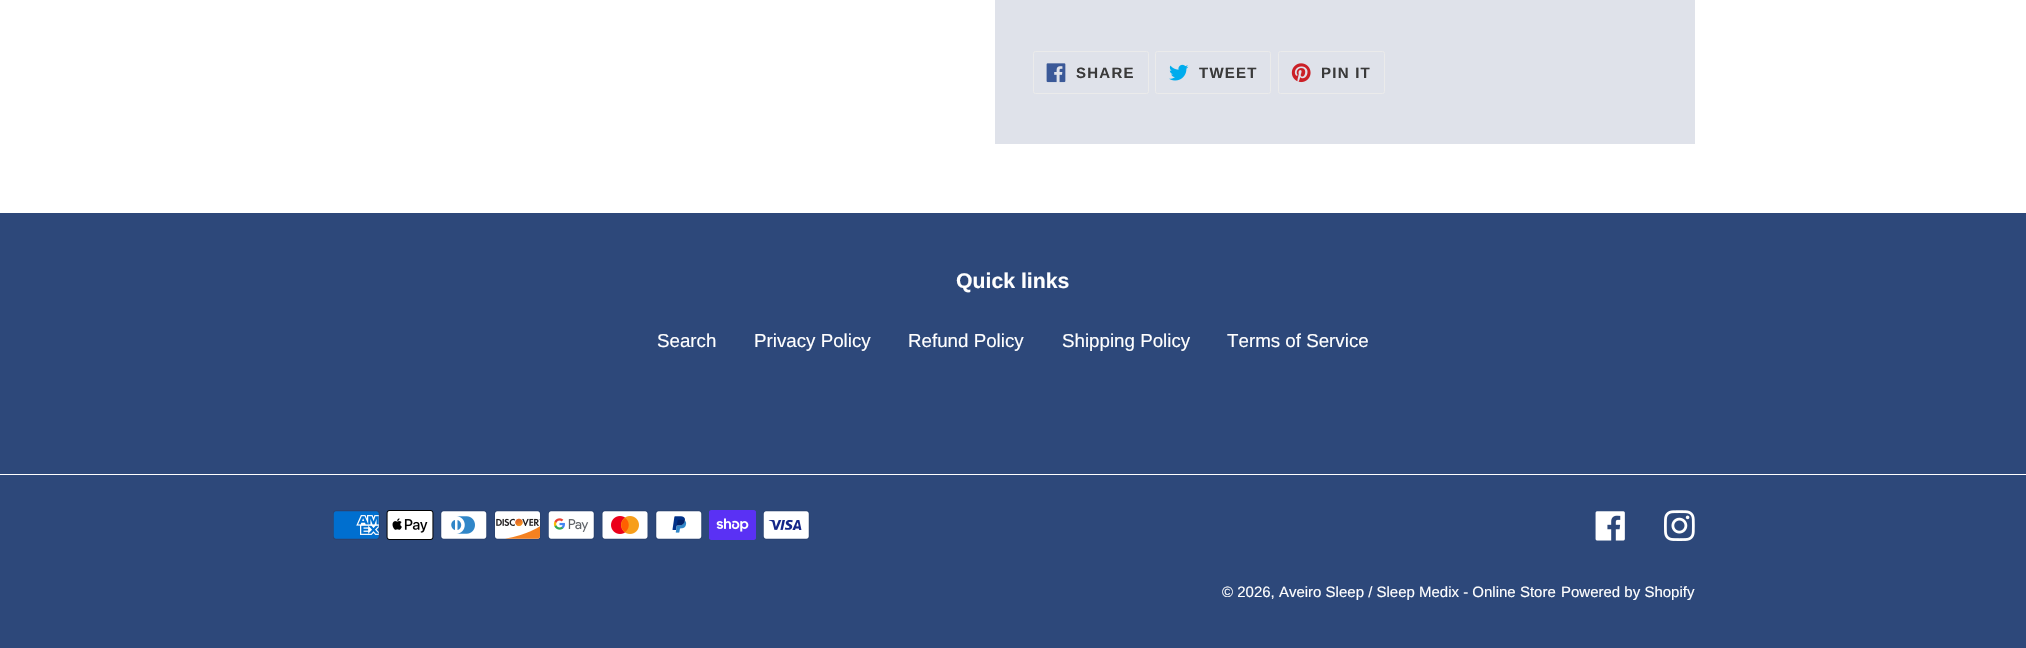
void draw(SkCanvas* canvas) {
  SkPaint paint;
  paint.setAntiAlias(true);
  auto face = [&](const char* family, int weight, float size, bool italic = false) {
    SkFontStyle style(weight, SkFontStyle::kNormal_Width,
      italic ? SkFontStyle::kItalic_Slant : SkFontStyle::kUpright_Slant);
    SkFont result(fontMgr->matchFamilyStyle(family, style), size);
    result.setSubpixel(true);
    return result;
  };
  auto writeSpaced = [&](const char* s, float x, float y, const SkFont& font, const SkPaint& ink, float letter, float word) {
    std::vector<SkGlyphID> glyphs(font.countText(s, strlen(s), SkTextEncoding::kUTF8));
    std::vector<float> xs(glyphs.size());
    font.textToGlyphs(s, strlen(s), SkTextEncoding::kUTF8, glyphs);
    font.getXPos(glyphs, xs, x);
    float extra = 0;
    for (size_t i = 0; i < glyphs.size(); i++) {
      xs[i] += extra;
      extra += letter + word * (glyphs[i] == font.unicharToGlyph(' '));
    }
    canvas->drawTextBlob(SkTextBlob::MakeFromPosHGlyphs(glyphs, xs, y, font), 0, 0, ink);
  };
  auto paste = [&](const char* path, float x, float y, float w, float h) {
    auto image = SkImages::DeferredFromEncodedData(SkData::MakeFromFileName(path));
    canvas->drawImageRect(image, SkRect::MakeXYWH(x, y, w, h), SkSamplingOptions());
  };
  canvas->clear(0xffffffff);
  paint.setColor(0xffdfe2ea);
  canvas->drawRect(SkRect::MakeXYWH(995, 0, 700, 144), paint);
  paint.setStroke(true);
  paint.setStrokeWidth(1);
  paint.setColor(0xffebebeb);
  canvas->drawRoundRect(SkRect::MakeXYWH(1033.5f, 51.5f, 115, 42), 2, 2, paint);
  paste("img/1.png", 1046, 63, 20, 20);
  canvas->drawRoundRect(SkRect::MakeXYWH(1155.5f, 51.5f, 115, 42), 2, 2, paint);
  paste("img/2.png", 1169, 64, 20, 17);
  canvas->drawRoundRect(SkRect::MakeXYWH(1278.5f, 51.5f, 106, 42), 2, 2, paint);
  paste("img/3.png", 1291, 63, 20, 20);
  paint.setStroke(false);
  paint.setColor(0xff2d487a);
  canvas->drawRect(SkRect::MakeXYWH(0, 213, 2026, 435), paint);
  paint.setColor(0xffffffff);
  canvas->drawRect(SkRect::MakeXYWH(0, 474, 2026, 1), paint);
  paste("img/4.png", 333, 510, 47, 30);
  paste("img/5.png", 386, 510, 48, 30);
  paste("img/6.png", 440, 510, 48, 30);
  paste("img/7.png", 494, 510, 47, 30);
  paste("img/8.png", 548, 510, 47, 30);
  paste("img/9.png", 601, 510, 48, 30);
  paste("img/10.png", 655, 510, 48, 30);
  paste("img/11.png", 709, 510, 47, 30);
  paste("img/12.png", 763, 510, 47, 30);
  paste("img/13.png", 1595, 511, 30, 30);
  paste("img/14.png", 1664, 510, 31, 31);
  auto f0 = face("Liberation Sans", 700, 15);
  paint.setColor(0xff3a3a3a);
  {
    const struct { const char* s; float x, y; } items[] = {
      {"SHARE", 1076, 78},
      {"TWEET", 1199, 78},
      {"PIN IT", 1321, 78},
    };
    for (auto [s, x, y] : items) {
      writeSpaced(s, x, y, f0, paint, 1.25f, 0);
    }
  }
  auto f1 = face("Liberation Sans", 700, 21.25f);
  paint.setColor(0xffffffff);
  canvas->drawString("Quick links", 956, 288, f1, paint);
  auto f2 = face("Liberation Sans", 400, 18.75f);
  {
    const struct { const char* s; float x, y; } items[] = {
      {"Search", 657, 347},
      {"Privacy Policy", 754, 347},
      {"Refund Policy", 908, 347},
      {"Shipping Policy", 1062, 347},
      {"Terms of Service", 1227, 347},
    };
    for (auto [s, x, y] : items) {
      canvas->drawString(s, x, y, f2, paint);
    }
  }
  auto f3 = face("Liberation Sans", 400, 15);
  canvas->drawString("© 2026, Aveiro Sleep / Sleep Medix - Online Store", 1222, 597, f3, paint);
  canvas->drawString("Powered by Shopify", 1561, 597, f3, paint);
}
